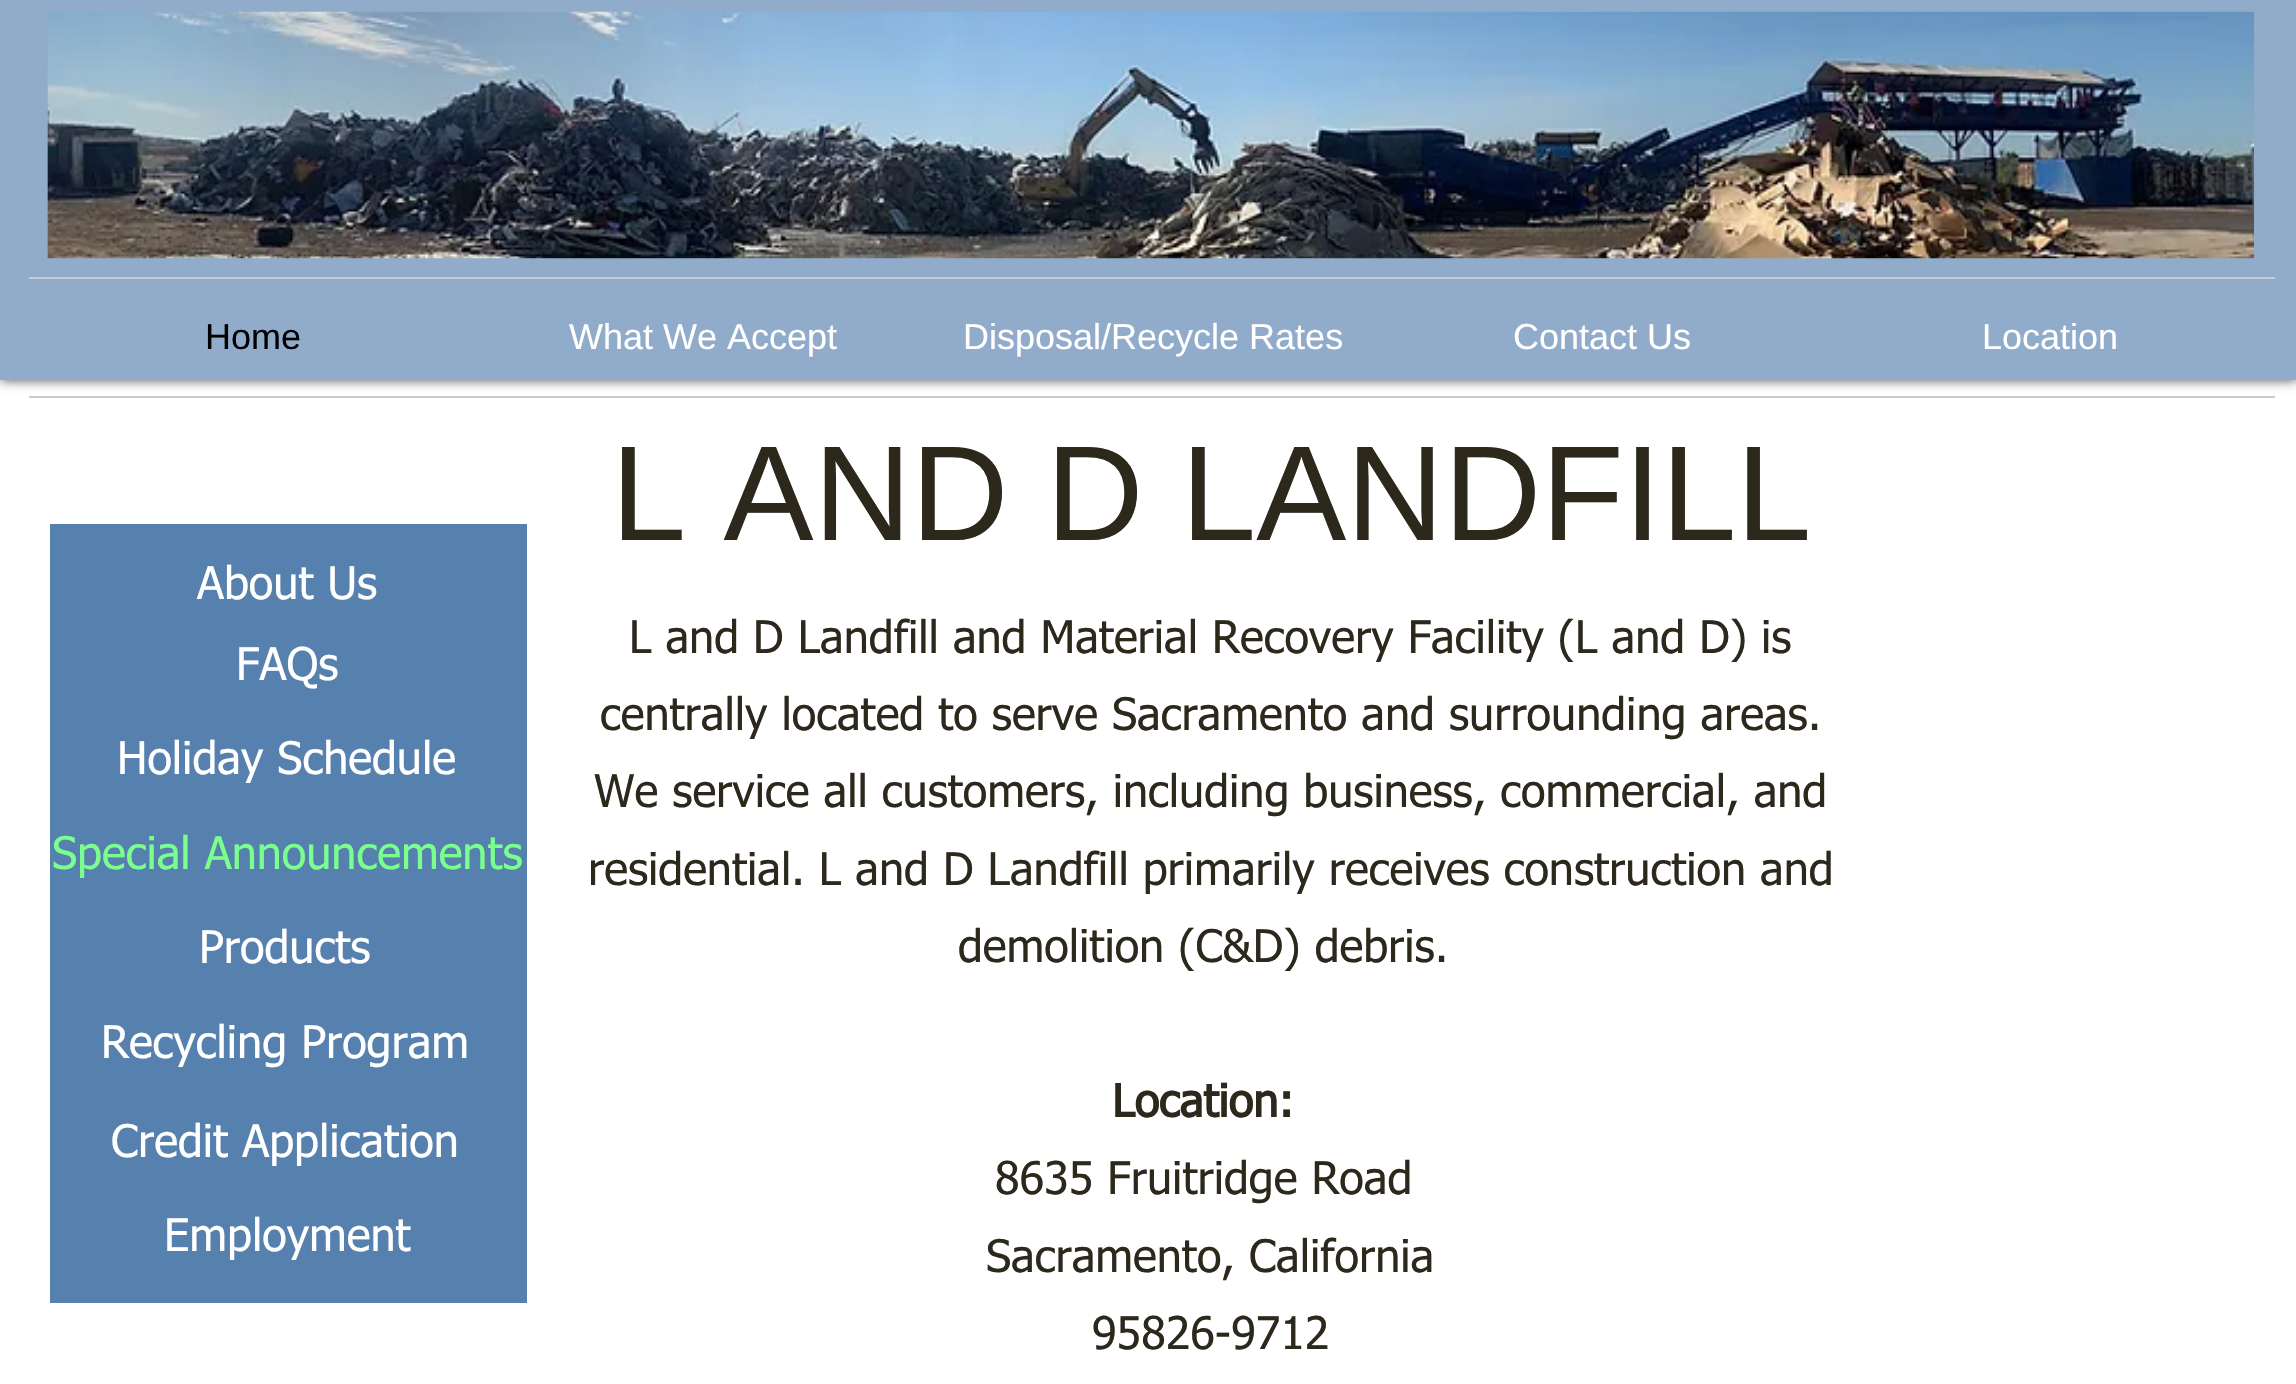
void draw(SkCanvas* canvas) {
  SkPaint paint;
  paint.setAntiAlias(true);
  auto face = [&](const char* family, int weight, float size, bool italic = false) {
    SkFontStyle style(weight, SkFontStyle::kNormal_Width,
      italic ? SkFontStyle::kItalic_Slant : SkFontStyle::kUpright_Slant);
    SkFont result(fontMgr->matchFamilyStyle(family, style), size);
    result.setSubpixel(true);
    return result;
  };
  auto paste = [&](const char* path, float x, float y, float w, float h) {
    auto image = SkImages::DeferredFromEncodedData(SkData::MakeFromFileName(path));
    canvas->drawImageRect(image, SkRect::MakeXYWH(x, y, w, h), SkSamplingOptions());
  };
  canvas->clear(0xffffffff);
  paint.setColor(0xb3000000);
  paint.setMaskFilter(SkMaskFilter::MakeBlur(kNormal_SkBlurStyle, 5.5f));
  canvas->drawRect(SkRect::MakeXYWH(0, 0, 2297, 380), paint);
  paint.setMaskFilter(nullptr);
  paint.setColor(0xff91acca);
  canvas->drawRect(SkRect::MakeXYWH(0, 0, 2296, 380), paint);
  paste("img/1.png", 47, 11, 2208, 248);
  {
    const struct { float x, y, w, h; SkColor color; } items[] = {
      {29, 277, 2246, 2, 0xffcacaca},
      {29, 396, 2246, 2, 0xffcacaca},
      {50, 524, 477, 779, 0xff5680ae},
    };
    for (auto [x, y, w, h, color] : items) {
      paint.setColor(color);
      canvas->drawRect(SkRect::MakeXYWH(x, y, w, h), paint);
    }
  }
  auto f0 = face("Liberation Sans", 400, 36);
  paint.setColor(0xff000000);
  canvas->drawString("Home", 205, 349, f0, paint);
  paint.setColor(0xffffffff);
  {
    const struct { const char* s; float x, y; } items[] = {
      {"What We Accept", 569, 349},
      {"Disposal/Recycle Rates", 963, 349},
      {"Contact Us", 1513, 349},
      {"Location", 1982, 349},
    };
    for (auto [s, x, y] : items) {
      canvas->drawString(s, x, y, f0, paint);
    }
  }
  auto f1 = face("tahoma", 400, 45);
  {
    const struct { const char* s; float x, y; } items[] = {
      {"About Us", 197, 599},
      {"Credit Application", 111, 1157},
      {"Employment", 164, 1251},
      {"FAQs", 236, 680},
      {"Holiday Schedule", 117, 774},
    };
    for (auto [s, x, y] : items) {
      canvas->drawString(s, x, y, f1, paint);
    }
  }
  paint.setColor(0xff7aff8e);
  canvas->drawString("Special Announcements", 52, 869, f1, paint);
  paint.setColor(0xffffffff);
  canvas->drawString("Products", 199, 963, f1, paint);
  canvas->drawString("Recycling Program", 101, 1058, f1, paint);
  auto f2 = face("Liberation Sans", 400, 135);
  paint.setColor(0xff2c281c);
  canvas->drawString("L AND D LANDFILL", 611, 540, f2, paint);
  {
    const struct { const char* s; float x, y; } items[] = {
      {"L and D Landfill and Material Recovery Facility (L and D) is", 629, 653},
      {"centrally located to serve Sacramento and surrounding areas.", 600, 730},
      {"We service all customers, including business, commercial, and", 594, 807},
      {"residential. L and D Landfill primarily receives construction and", 588, 885},
      {"demolition (C&D) debris.", 958, 962},
    };
    for (auto [s, x, y] : items) {
      canvas->drawString(s, x, y, f1, paint);
    }
  }
  auto f3 = face("tahoma", 700, 45);
  canvas->drawString("Location:", 1112, 1117, f3, paint);
  {
    const struct { const char* s; float x, y; } items[] = {
      {"8635 Fruitridge Road", 995, 1194},
      {"Sacramento, California", 986, 1272},
      {"95826-9712", 1092, 1349},
    };
    for (auto [s, x, y] : items) {
      canvas->drawString(s, x, y, f1, paint);
    }
  }
}
